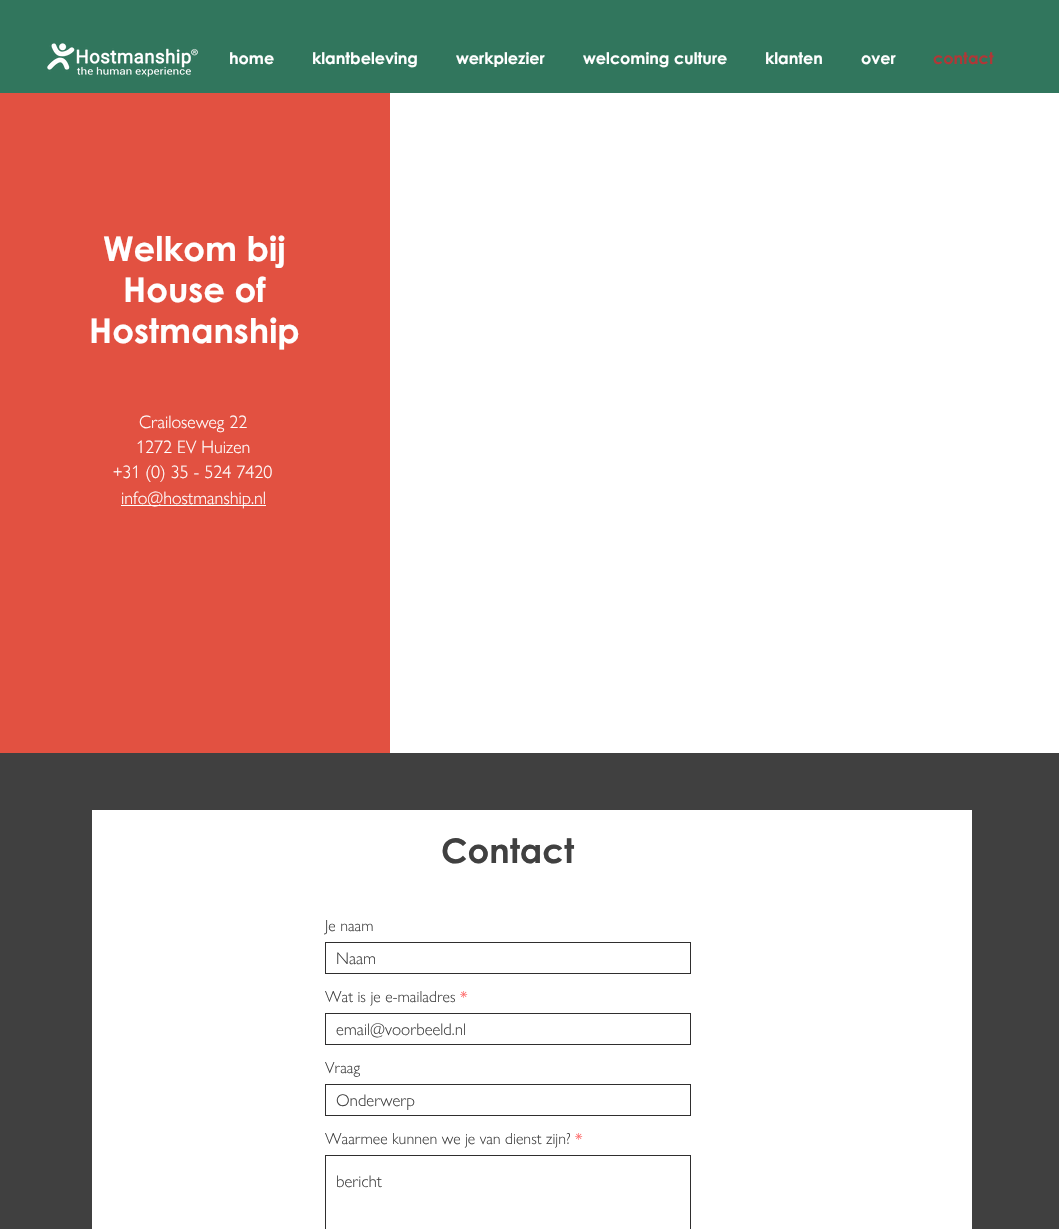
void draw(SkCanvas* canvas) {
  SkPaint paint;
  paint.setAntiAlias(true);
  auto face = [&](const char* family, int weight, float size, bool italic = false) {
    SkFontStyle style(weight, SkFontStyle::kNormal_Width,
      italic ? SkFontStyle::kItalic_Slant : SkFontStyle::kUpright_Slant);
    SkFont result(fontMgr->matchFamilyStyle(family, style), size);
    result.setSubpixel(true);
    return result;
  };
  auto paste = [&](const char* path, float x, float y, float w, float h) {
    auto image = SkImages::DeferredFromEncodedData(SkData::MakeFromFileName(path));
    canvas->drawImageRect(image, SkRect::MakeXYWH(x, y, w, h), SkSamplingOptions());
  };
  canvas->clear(0xffffffff);
  paint.setColor(0xff31765d);
  canvas->drawRect(SkRect::MakeXYWH(0, 0, 1059, 93), paint);
  paste("img/1.png", 47, 43, 151, 34);
  {
    const struct { float x, y, w, h; SkColor color; } items[] = {
      {0, 93, 390, 660, 0xffe25141},
      {121, 505, 145, 1, 0xffffffff},
      {0, 753, 1059, 476, 0xff404040},
      {92, 810, 880, 419, 0xffffffff},
    };
    for (auto [x, y, w, h, color] : items) {
      paint.setColor(color);
      canvas->drawRect(SkRect::MakeXYWH(x, y, w, h), paint);
    }
  }
  paint.setStroke(true);
  paint.setStrokeWidth(1);
  paint.setColor(0xff2f2e2e);
  canvas->drawRect(SkRect::MakeXYWH(325.5f, 942.5f, 365, 31), paint);
  canvas->drawRect(SkRect::MakeXYWH(325.5f, 1013.5f, 365, 31), paint);
  canvas->drawRect(SkRect::MakeXYWH(325.5f, 1084.5f, 365, 31), paint);
  canvas->drawRect(SkRect::MakeXYWH(325.5f, 1155.5f, 365, 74), paint);
  auto f0 = face("Century Gothic", 700, 16);
  paint.setStroke(false);
  paint.setColor(0xffffffff);
  {
    const struct { const char* s; float x, y; } items[] = {
      {"home", 229, 64},
      {"klantbeleving", 312, 64},
      {"werkplezier", 456, 64},
      {"welcoming culture", 583, 64},
      {"klanten", 765, 64},
      {"over", 861, 64},
    };
    for (auto [s, x, y] : items) {
      canvas->drawString(s, x, y, f0, paint);
    }
  }
  paint.setColor(0xffb03737);
  canvas->drawString("contact", 933, 64, f0, paint);
  auto f1 = face("Century Gothic", 700, 34);
  paint.setColor(0xffffffff);
  {
    const struct { const char* s; float x, y; } items[] = {
      {"Welkom bij", 103, 261},
      {"House of", 123, 302},
      {"Hostmanship", 89, 343},
    };
    for (auto [s, x, y] : items) {
      canvas->drawString(s, x, y, f1, paint);
    }
  }
  auto f2 = face("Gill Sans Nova", 300, 18);
  {
    const struct { const char* s; float x, y; } items[] = {
      {"Crailoseweg 22", 139, 428},
      {"1272 EV Huizen", 136, 453},
      {"+31 (0) 35 - 524 7420", 113, 478},
      {"info@hostmanship.nl", 121, 504},
    };
    for (auto [s, x, y] : items) {
      canvas->drawString(s, x, y, f2, paint);
    }
  }
  paint.setColor(0xff404040);
  canvas->drawString("Contact", 441, 863, f1, paint);
  auto f3 = face("Gill Sans Nova", 300, 16);
  canvas->drawString("Je naam", 325, 931, f3, paint);
  auto f4 = face("Gill Sans Nova", 300, 17);
  canvas->drawString("Naam", 336, 964, f4, paint);
  canvas->drawString("Wat is je e-mailadres", 325, 1002, f3, paint);
  paint.setColor(0xfffe6060);
  canvas->drawString("*", 460, 1002, f3, paint);
  paint.setColor(0xff404040);
  canvas->drawString("email@voorbeeld.nl", 336, 1035, f4, paint);
  canvas->drawString("Vraag", 325, 1073, f3, paint);
  canvas->drawString("Onderwerp", 336, 1106, f4, paint);
  canvas->drawString("Waarmee kunnen we je van dienst zijn?", 325, 1144, f3, paint);
  paint.setColor(0xfffe6060);
  canvas->drawString("*", 575, 1144, f3, paint);
  paint.setColor(0xff404040);
  canvas->drawString("bericht", 336, 1187, f4, paint);
}
